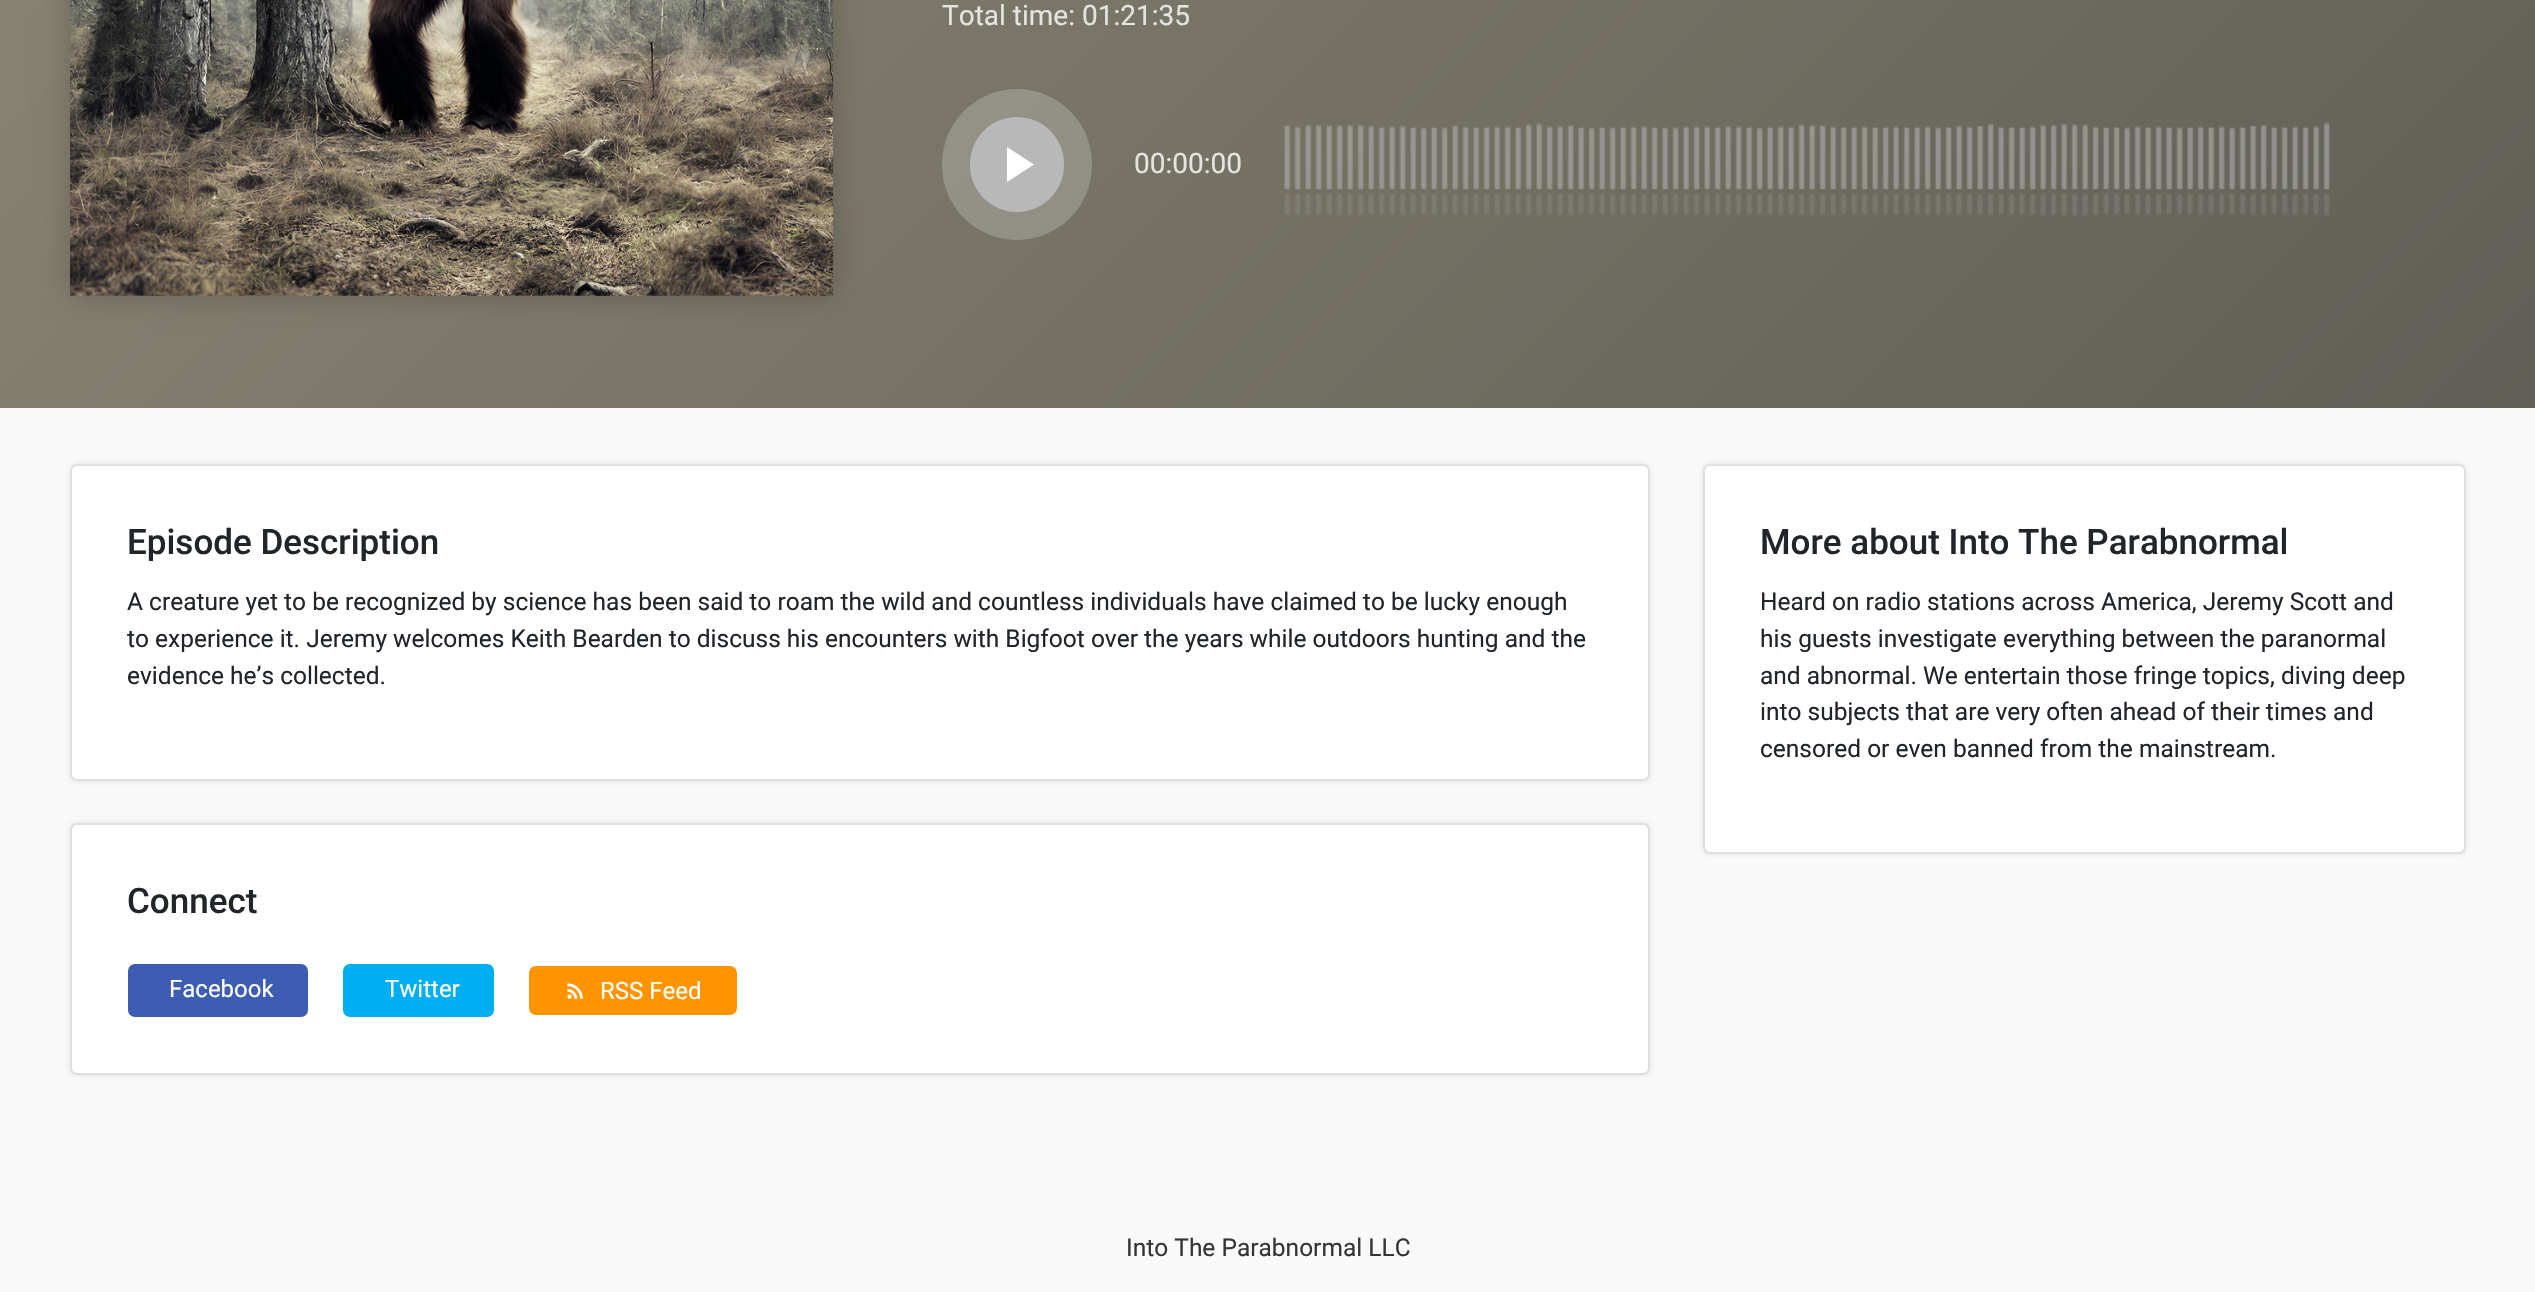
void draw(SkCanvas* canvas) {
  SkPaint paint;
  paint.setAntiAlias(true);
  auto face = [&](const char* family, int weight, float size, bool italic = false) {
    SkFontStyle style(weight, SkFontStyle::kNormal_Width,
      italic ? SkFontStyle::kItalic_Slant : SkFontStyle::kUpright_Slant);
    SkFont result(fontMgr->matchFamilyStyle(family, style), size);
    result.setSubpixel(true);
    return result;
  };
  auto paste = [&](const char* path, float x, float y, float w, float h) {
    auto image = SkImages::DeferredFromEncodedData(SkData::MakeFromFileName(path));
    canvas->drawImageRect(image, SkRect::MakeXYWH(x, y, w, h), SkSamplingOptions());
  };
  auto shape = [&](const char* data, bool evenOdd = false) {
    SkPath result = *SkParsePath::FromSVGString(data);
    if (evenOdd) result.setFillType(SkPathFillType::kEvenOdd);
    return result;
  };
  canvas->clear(0xfff9f9f9);
  {
    const SkColor colors[] = {0xff908976, 0xff605f57};
    const float stops[] = {0, 1};
    const SkPoint ends[] = {{387, -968}, {2149, 794}};
    paint.setShader(SkGradientShader::MakeLinear(ends, colors, stops, 2, SkTileMode::kClamp));
    paint.setAlpha(255);
  }
  canvas->drawRect(SkRect::MakeXYWH(0, 0, 2535, 408), paint);
  paint.setShader(nullptr);
  paint.setColor(0x33000000);
  paint.setMaskFilter(SkMaskFilter::MakeBlur(kNormal_SkBlurStyle, 14));
  canvas->drawRect(SkRect::MakeXYWH(70, -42, 763, 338), paint);
  paint.setMaskFilter(nullptr);
  paste("img/1.png", 70, 0, 763, 296);
  paint.setColor(0x33ffffff);
  canvas->drawRoundRect(SkRect::MakeXYWH(942, 89, 150, 151), 75, 75, paint);
  paint.setColor(0xffb8b8b8);
  canvas->drawRoundRect(SkRect::MakeXYWH(970, 117, 94, 95), 47, 47, paint);
  paint.setColor(0xffffffff);
  canvas->drawPath(shape("M1007 147L1034 164.5L1007 182Z"), paint);
  paste("img/2.png", 1284, 122, 1046, 94);
  paint.setColor(0x1a000000);
  paint.setMaskFilter(SkMaskFilter::MakeBlur(kNormal_SkBlurStyle, 2.5f));
  canvas->drawRoundRect(SkRect::MakeXYWH(70, 464, 1580, 317), 7, 7, paint);
  paint.setMaskFilter(nullptr);
  paint.setColor(0xffffffff);
  canvas->drawRoundRect(SkRect::MakeXYWH(70, 464, 1580, 317), 7, 7, paint);
  paint.setStroke(true);
  paint.setStrokeWidth(2);
  paint.setColor(0x1f000000);
  canvas->drawRoundRect(SkRect::MakeXYWH(71, 465, 1578, 315), 6, 6, paint);
  paint.setStroke(false);
  paint.setColor(0x1a000000);
  paint.setMaskFilter(SkMaskFilter::MakeBlur(kNormal_SkBlurStyle, 2.5f));
  canvas->drawRoundRect(SkRect::MakeXYWH(70, 823, 1580, 252), 7, 7, paint);
  paint.setMaskFilter(nullptr);
  paint.setColor(0xffffffff);
  canvas->drawRoundRect(SkRect::MakeXYWH(70, 823, 1580, 252), 7, 7, paint);
  paint.setStroke(true);
  paint.setColor(0x1f000000);
  canvas->drawRoundRect(SkRect::MakeXYWH(71, 824, 1578, 250), 6, 6, paint);
  paint.setStroke(false);
  paint.setColor(0xff3d5db2);
  canvas->drawRoundRect(SkRect::MakeXYWH(128, 964, 180, 53), 7, 7, paint);
  paint.setColor(0xff00aff1);
  canvas->drawRoundRect(SkRect::MakeXYWH(343, 964, 151, 53), 7, 7, paint);
  paint.setColor(0xffff9400);
  canvas->drawRoundRect(SkRect::MakeXYWH(529, 966, 208, 49), 7, 7, paint);
  paste("img/3.png", 567, 983, 16, 16);
  paint.setColor(0x1a000000);
  paint.setMaskFilter(SkMaskFilter::MakeBlur(kNormal_SkBlurStyle, 2.5f));
  canvas->drawRoundRect(SkRect::MakeXYWH(1703, 464, 763, 390), 7, 7, paint);
  paint.setMaskFilter(nullptr);
  paint.setColor(0xffffffff);
  canvas->drawRoundRect(SkRect::MakeXYWH(1703, 464, 763, 390), 7, 7, paint);
  paint.setStroke(true);
  paint.setColor(0x1f000000);
  canvas->drawRoundRect(SkRect::MakeXYWH(1704, 465, 761, 388), 6, 6, paint);
  auto f0 = face("Roboto", 400, 28);
  paint.setStroke(false);
  paint.setColor(0xffe4e4e1);
  {
    const struct { const char* s; float x, y; } items[] = {
      {"Total time:", 942, 25},
      {"01:21:35", 1082, 25},
      {"00:00:00", 1134, 173},
    };
    for (auto [s, x, y] : items) {
      canvas->drawString(s, x, y, f0, paint);
    }
  }
  auto f1 = face("Roboto", 500, 35);
  paint.setColor(0xff212529);
  canvas->drawString("Episode Description", 127, 554, f1, paint);
  auto f2 = face("Roboto", 400, 24.5f);
  {
    const struct { const char* s; float x, y; } items[] = {
      {"A creature yet to be recognized by science has been said to roam the wild and countless individuals have claimed to be lucky enough", 127, 610},
      {"to experience it. Jeremy welcomes Keith Bearden to discuss his encounters with Bigfoot over the years while outdoors hunting and the", 127, 647},
      {"evidence he’s collected.", 127, 684},
    };
    for (auto [s, x, y] : items) {
      canvas->drawString(s, x, y, f2, paint);
    }
  }
  canvas->drawString("Connect", 127, 913, f1, paint);
  auto f3 = face("Roboto", 400, 24);
  paint.setColor(0xffffffff);
  {
    const struct { const char* s; float x, y; } items[] = {
      {"Facebook", 169, 997},
      {"Twitter", 385, 997},
      {"RSS Feed", 600, 999},
    };
    for (auto [s, x, y] : items) {
      canvas->drawString(s, x, y, f3, paint);
    }
  }
  paint.setColor(0xff212529);
  canvas->drawString("More about Into The Parabnormal", 1760, 554, f1, paint);
  {
    const struct { const char* s; float x, y; } items[] = {
      {"Heard on radio stations across America, Jeremy Scott and", 1760, 610},
      {"his guests investigate everything between the paranormal", 1760, 647},
      {"and abnormal. We entertain those fringe topics, diving deep", 1760, 684},
      {"into subjects that are very often ahead of their times and", 1760, 720},
      {"censored or even banned from the mainstream.", 1760, 757},
    };
    for (auto [s, x, y] : items) {
      canvas->drawString(s, x, y, f2, paint);
    }
  }
  paint.setColor(0xff353535);
  canvas->drawString("Into The Parabnormal LLC", 1126, 1256, f2, paint);
}
